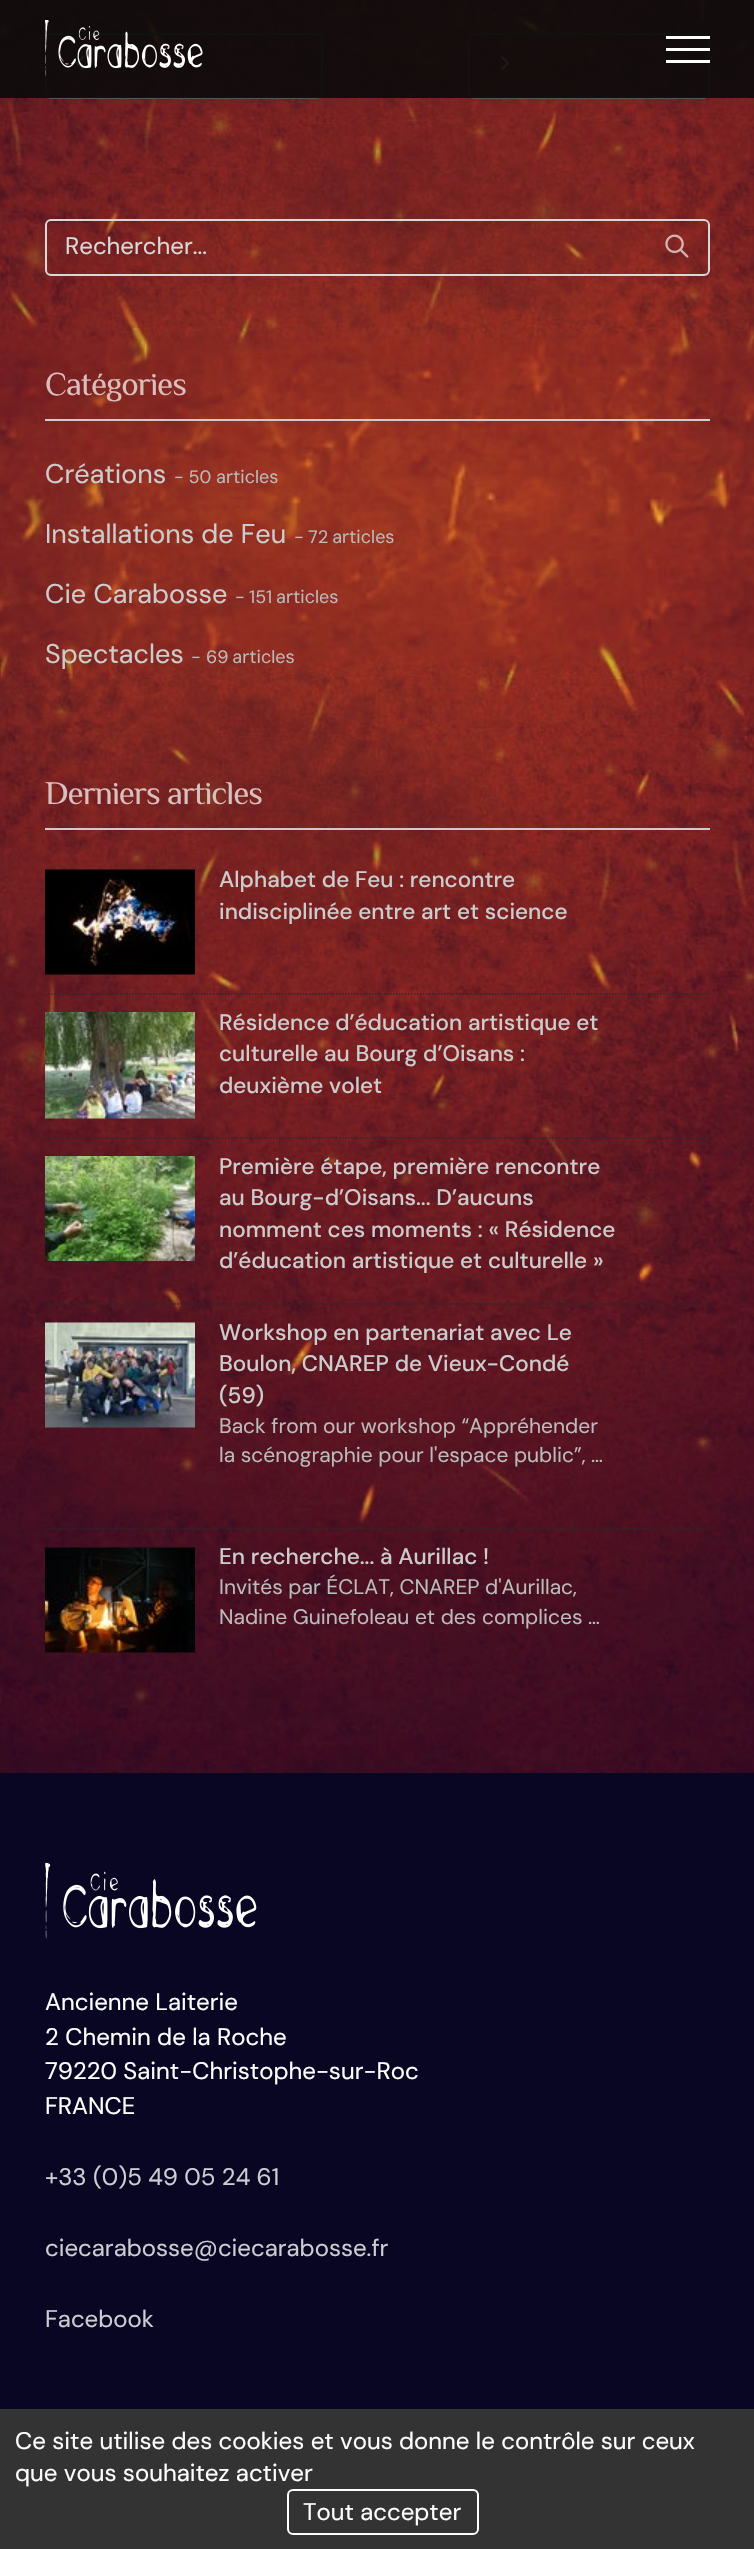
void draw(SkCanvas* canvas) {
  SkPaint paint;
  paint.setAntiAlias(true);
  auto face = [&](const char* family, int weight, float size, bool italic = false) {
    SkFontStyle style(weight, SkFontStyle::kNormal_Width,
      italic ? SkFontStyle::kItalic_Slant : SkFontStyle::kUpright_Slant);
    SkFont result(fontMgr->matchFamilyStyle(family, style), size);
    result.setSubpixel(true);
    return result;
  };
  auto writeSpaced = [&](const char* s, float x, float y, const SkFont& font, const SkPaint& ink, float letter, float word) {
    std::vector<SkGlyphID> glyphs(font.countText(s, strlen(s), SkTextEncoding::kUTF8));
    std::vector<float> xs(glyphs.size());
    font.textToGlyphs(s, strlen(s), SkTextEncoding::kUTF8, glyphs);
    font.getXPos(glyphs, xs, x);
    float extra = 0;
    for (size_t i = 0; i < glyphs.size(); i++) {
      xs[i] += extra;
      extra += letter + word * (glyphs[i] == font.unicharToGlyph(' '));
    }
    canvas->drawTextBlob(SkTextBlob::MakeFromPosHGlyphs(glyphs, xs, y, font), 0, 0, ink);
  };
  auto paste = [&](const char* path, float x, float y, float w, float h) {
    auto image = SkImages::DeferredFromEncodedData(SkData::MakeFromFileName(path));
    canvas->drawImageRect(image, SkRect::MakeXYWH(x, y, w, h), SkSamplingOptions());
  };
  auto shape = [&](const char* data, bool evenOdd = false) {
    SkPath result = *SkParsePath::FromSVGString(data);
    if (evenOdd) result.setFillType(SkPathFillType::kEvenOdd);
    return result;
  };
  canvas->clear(0xffffffff);
  paste("img/1.png", 0, 0, 754, 1773);
  paint.setStroke(true);
  paint.setStrokeWidth(2);
  paint.setColor(0xff555555);
  canvas->drawRoundRect(SkRect::MakeXYWH(46, 34, 276, 64), 5, 5, paint);
  paste("img/3.png", 76, 56, 8, 14);
  canvas->drawRoundRect(SkRect::MakeXYWH(469, 34, 240, 64), 5, 5, paint);
  paste("img/4.png", 501, 56, 8, 14);
  paint.setStroke(false);
  paint.setColor(0xe80a0a0a);
  canvas->drawRect(SkRect::MakeXYWH(0, 0, 754, 98), paint);
  paste("img/2.png", 45, 20, 158, 57);
  {
    const struct { float x, y, w, h; SkColor color; } items[] = {
      {666, 48, 44, 3, 0xffffffff},
      {666, 36, 44, 3, 0xffffffff},
      {666, 60, 44, 3, 0xffffffff},
    };
    for (auto [x, y, w, h, color] : items) {
      paint.setColor(color);
      canvas->drawRect(SkRect::MakeXYWH(x, y, w, h), paint);
    }
  }
  paint.setStroke(true);
  paint.setColor(0xffd8d8d8);
  canvas->drawRoundRect(SkRect::MakeXYWH(46, 220, 663, 55), 5, 5, paint);
  paste("img/5.png", 665, 234, 24, 24);
  paint.setStroke(false);
  paint.setColor(0xffcccccc);
  canvas->drawRect(SkRect::MakeXYWH(45, 419, 665, 2), paint);
  canvas->drawRect(SkRect::MakeXYWH(45, 828, 665, 2), paint);
  paint.setStroke(true);
  paint.setStrokeWidth(1.5f);
  paint.setColor(0xff282828);
  paint.setPathEffect(SkDashPathEffect::Make({{1.5f, 1.5f}}, 0));
  canvas->drawPath(shape("M45 994H709.5"), paint);
  paint.setPathEffect(nullptr);
  paste("img/6.png", 45, 869, 150, 106);
  paint.setPathEffect(SkDashPathEffect::Make({{1.5f, 1.5f}}, 0));
  canvas->drawPath(shape("M45 1138H709.5"), paint);
  paint.setPathEffect(nullptr);
  paste("img/7.png", 45, 1012, 150, 107);
  paint.setPathEffect(SkDashPathEffect::Make({{1.5f, 1.5f}}, 0));
  canvas->drawPath(shape("M45 1304H709.5"), paint);
  paint.setPathEffect(nullptr);
  paste("img/8.png", 45, 1156, 150, 105);
  paint.setPathEffect(SkDashPathEffect::Make({{1.5f, 1.5f}}, 0));
  canvas->drawPath(shape("M45 1529H709.5"), paint);
  paint.setPathEffect(nullptr);
  paste("img/9.png", 45, 1322, 150, 106);
  paste("img/10.png", 45, 1547, 150, 106);
  paint.setStroke(false);
  paint.setColor(0xff090623);
  canvas->drawRect(SkRect::MakeXYWH(0, 1773, 754, 636), paint);
  paste("img/11.png", 45, 1863, 212, 76);
  paint.setColor(0xff333333);
  canvas->drawRect(SkRect::MakeXYWH(0, 2409, 754, 140), paint);
  paint.setStroke(true);
  paint.setStrokeWidth(2);
  paint.setColor(0xffffffff);
  canvas->drawRoundRect(SkRect::MakeXYWH(288, 2490, 190, 44), 5, 5, paint);
  auto f0 = face("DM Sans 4", 400, 24);
  paint.setStroke(false);
  paint.setColor(0xffd8d8d8);
  canvas->drawString("Rechercher...", 65, 254, f0, paint);
  auto f1 = face("Philosopher", 400, 33);
  paint.setColor(0xffdabebd);
  writeSpaced("Catégories", 45, 395, f1, paint, -1, 0);
  auto f2 = face("DM Sans", 400, 27);
  paint.setColor(0xffcccccc);
  canvas->drawString("Créations", 45, 483, f2, paint);
  auto f3 = face("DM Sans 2", 400, 18);
  paint.setColor(0xffbbbbbb);
  canvas->drawString("- 50 articles", 174, 483, f3, paint);
  paint.setColor(0xffcccccc);
  canvas->drawString("Installations de Feu", 45, 543, f2, paint);
  paint.setColor(0xffbbbbbb);
  canvas->drawString("-", 294, 543, f3, paint);
  writeSpaced("72 articles", 308, 543, f3, paint, 0, -1);
  paint.setColor(0xffcccccc);
  canvas->drawString("Cie Carabosse", 45, 603, f2, paint);
  paint.setColor(0xffbbbbbb);
  canvas->drawString("-", 235, 603, f3, paint);
  writeSpaced("151 articles", 249, 603, f3, paint, 0, -1);
  paint.setColor(0xffcccccc);
  canvas->drawString("Spectacles", 45, 663, f2, paint);
  paint.setColor(0xffbbbbbb);
  canvas->drawString("-", 191, 663, f3, paint);
  writeSpaced("69 articles", 206, 663, f3, paint, 0, -1);
  paint.setColor(0xffdabebd);
  writeSpaced("Derniers articles", 45, 804, f1, paint, -1, 0);
  auto f4 = face("DM Sans", 500, 22.5f);
  paint.setColor(0xffcccccc);
  {
    const struct { const char* s; float x, y; } items[] = {
      {"Alphabet de Feu : rencontre", 219, 887},
      {"indisciplinée entre art et science", 219, 919},
      {"Résidence d’éducation artistique et", 219, 1030},
      {"culturelle au Bourg d’Oisans :", 219, 1061},
      {"deuxième volet", 219, 1093},
      {"Première étape, première rencontre", 219, 1174},
      {"au Bourg-d’Oisans... D’aucuns", 219, 1205},
      {"nomment ces moments : « Résidence", 219, 1237},
      {"d’éducation artistique et culturelle »", 219, 1268},
      {"Workshop en partenariat avec Le", 219, 1340},
      {"Boulon, CNAREP de Vieux-Condé", 219, 1371},
      {"(59)", 219, 1403},
    };
    for (auto [s, x, y] : items) {
      canvas->drawString(s, x, y, f4, paint);
    }
  }
  auto f5 = face("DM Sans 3", 400, 21);
  paint.setColor(0xffbbbbbb);
  canvas->drawString("Back from our workshop “Appréhender", 219, 1433, f5, paint);
  canvas->drawString("la scénographie pour l'espace public”, …", 219, 1462, f5, paint);
  paint.setColor(0xffcccccc);
  canvas->drawString("En recherche... à Aurillac !", 219, 1564, f4, paint);
  paint.setColor(0xffbbbbbb);
  canvas->drawString("Invités par ÉCLAT, CNAREP d'Aurillac,", 219, 1594, f5, paint);
  canvas->drawString("Nadine Guinefoleau et des complices …", 219, 1624, f5, paint);
  paint.setColor(0xffffffff);
  {
    const struct { const char* s; float x, y; } items[] = {
      {"Ancienne Laiterie", 45, 2010},
      {"2 Chemin de la Roche", 45, 2045},
      {"79220 Saint-Christophe-sur-Roc", 45, 2079},
      {"FRANCE", 45, 2114},
    };
    for (auto [s, x, y] : items) {
      canvas->drawString(s, x, y, f0, paint);
    }
  }
  paint.setColor(0xffcecdd3);
  {
    const struct { const char* s; float x, y; } items[] = {
      {"+33 (0)5 49 05 24 61", 45, 2185},
      {"ciecarabosse@ciecarabosse.fr", 45, 2256},
      {"Facebook", 45, 2327},
    };
    for (auto [s, x, y] : items) {
      canvas->drawString(s, x, y, f0, paint);
    }
  }
  paint.setColor(0xffffffff);
  {
    const struct { const char* s; float x, y; } items[] = {
      {"Ce site utilise des cookies et vous donne le contrôle sur ceux", 15, 2449},
      {"que vous souhaitez activer", 15, 2481},
      {"Tout accepter", 303, 2520},
    };
    for (auto [s, x, y] : items) {
      canvas->drawString(s, x, y, f0, paint);
    }
  }
}
